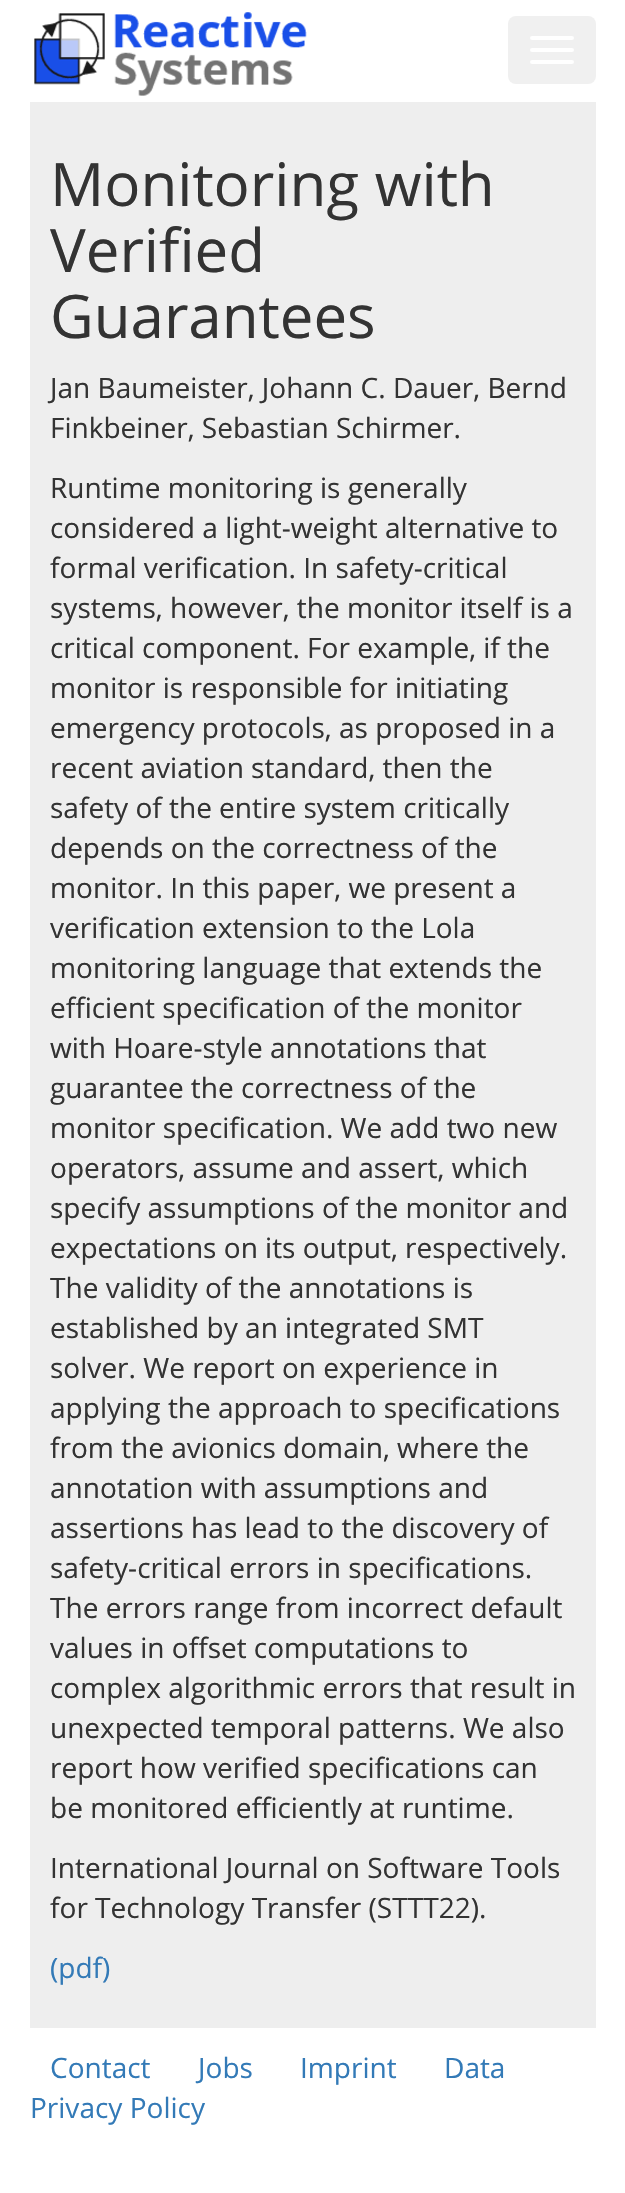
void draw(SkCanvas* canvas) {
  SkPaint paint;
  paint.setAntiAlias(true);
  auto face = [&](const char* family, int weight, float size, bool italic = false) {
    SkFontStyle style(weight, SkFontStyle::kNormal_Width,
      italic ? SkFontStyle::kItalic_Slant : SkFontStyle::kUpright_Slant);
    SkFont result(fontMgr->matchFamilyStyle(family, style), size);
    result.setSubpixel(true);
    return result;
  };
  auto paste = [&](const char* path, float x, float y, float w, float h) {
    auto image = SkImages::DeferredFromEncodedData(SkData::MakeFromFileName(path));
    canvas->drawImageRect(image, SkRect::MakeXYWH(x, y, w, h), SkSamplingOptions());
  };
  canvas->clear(0xffffffff);
  paste("img/1.png", 34, 12, 273, 84);
  paint.setColor(0xfff0f0f0);
  canvas->drawRoundRect(SkRect::MakeXYWH(508, 16, 88, 68), 8, 8, paint);
  paint.setColor(0xffffffff);
  canvas->drawRoundRect(SkRect::MakeXYWH(530, 36, 44, 4), 2, 2, paint);
  canvas->drawRoundRect(SkRect::MakeXYWH(530, 48, 44, 4), 2, 2, paint);
  canvas->drawRoundRect(SkRect::MakeXYWH(530, 60, 44, 4), 2, 2, paint);
  paint.setColor(0xffeeeeee);
  canvas->drawRect(SkRect::MakeXYWH(30, 102, 566, 1926), paint);
  auto f0 = face("Open Sans", 400, 60);
  paint.setColor(0xff333333);
  {
    const struct { const char* s; float x, y; } items[] = {
      {"Monitoring with", 50, 206},
      {"Verified", 50, 272},
      {"Guarantees", 50, 338},
    };
    for (auto [s, x, y] : items) {
      canvas->drawString(s, x, y, f0, paint);
    }
  }
  auto f1 = face("Open Sans", 400, 28);
  {
    const struct { const char* s; float x, y; } items[] = {
      {"Jan Baumeister, Johann C. Dauer, Bernd", 50, 398},
      {"Finkbeiner, Sebastian Schirmer.", 50, 438},
      {"Runtime monitoring is generally", 50, 498},
      {"considered a light-weight alternative to", 50, 538},
      {"formal verification. In safety-critical", 50, 578},
      {"systems, however, the monitor itself is a", 50, 618},
      {"critical component. For example, if the", 50, 658},
      {"monitor is responsible for initiating", 50, 698},
      {"emergency protocols, as proposed in a", 50, 738},
      {"recent aviation standard, then the", 50, 778},
      {"safety of the entire system critically", 50, 818},
      {"depends on the correctness of the", 50, 858},
      {"monitor. In this paper, we present a", 50, 898},
      {"verification extension to the Lola", 50, 938},
      {"monitoring language that extends the", 50, 978},
      {"efficient specification of the monitor", 50, 1018},
      {"with Hoare-style annotations that", 50, 1058},
      {"guarantee the correctness of the", 50, 1098},
      {"monitor specification. We add two new", 50, 1138},
      {"operators, assume and assert, which", 50, 1178},
      {"specify assumptions of the monitor and", 50, 1218},
      {"expectations on its output, respectively.", 50, 1258},
      {"The validity of the annotations is", 50, 1298},
      {"established by an integrated SMT", 50, 1338},
      {"solver. We report on experience in", 50, 1378},
      {"applying the approach to specifications", 50, 1418},
      {"from the avionics domain, where the", 50, 1458},
      {"annotation with assumptions and", 50, 1498},
      {"assertions has lead to the discovery of", 50, 1538},
      {"safety-critical errors in specifications.", 50, 1578},
      {"The errors range from incorrect default", 50, 1618},
      {"values in offset computations to", 50, 1658},
      {"complex algorithmic errors that result in", 50, 1698},
      {"unexpected temporal patterns. We also", 50, 1738},
      {"report how verified specifications can", 50, 1778},
      {"be monitored efficiently at runtime.", 50, 1818},
      {"International Journal on Software Tools", 50, 1878},
      {"for Technology Transfer (STTT22).", 50, 1918},
    };
    for (auto [s, x, y] : items) {
      canvas->drawString(s, x, y, f1, paint);
    }
  }
  paint.setColor(0xff337ab7);
  {
    const struct { const char* s; float x, y; } items[] = {
      {"(pdf)", 50, 1978},
      {"Contact", 50, 2078},
      {"Jobs", 198, 2078},
      {"Imprint", 300, 2078},
      {"Data", 444, 2078},
      {"Privacy Policy", 30, 2118},
    };
    for (auto [s, x, y] : items) {
      canvas->drawString(s, x, y, f1, paint);
    }
  }
}
